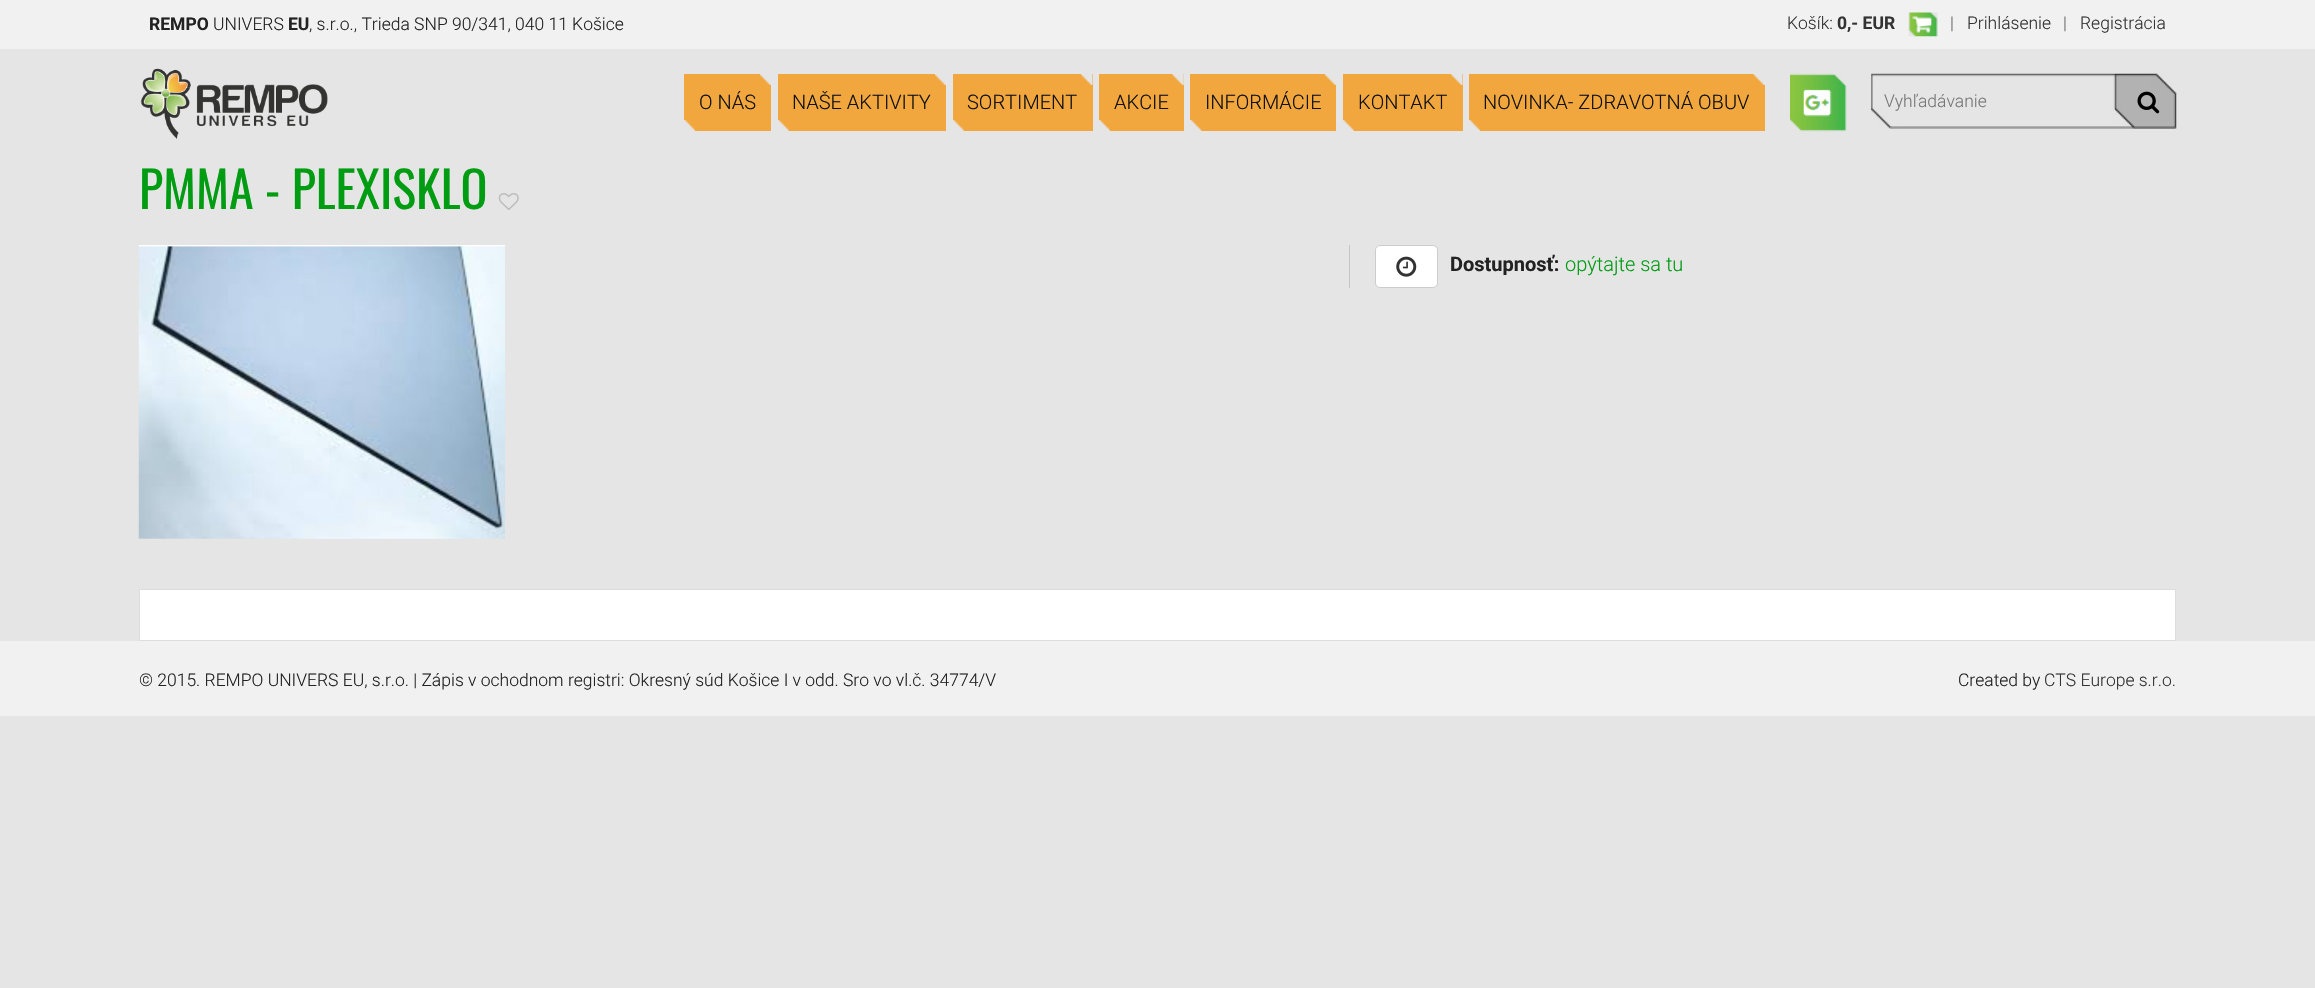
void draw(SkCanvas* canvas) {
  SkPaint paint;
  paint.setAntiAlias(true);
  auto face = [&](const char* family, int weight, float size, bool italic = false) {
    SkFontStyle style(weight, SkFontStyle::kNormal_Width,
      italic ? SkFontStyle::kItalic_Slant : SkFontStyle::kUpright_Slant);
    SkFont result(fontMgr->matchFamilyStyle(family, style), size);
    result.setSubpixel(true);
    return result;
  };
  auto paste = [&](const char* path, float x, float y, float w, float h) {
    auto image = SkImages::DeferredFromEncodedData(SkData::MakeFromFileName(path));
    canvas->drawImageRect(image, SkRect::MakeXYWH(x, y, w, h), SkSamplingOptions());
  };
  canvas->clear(0xffe5e5e5);
  paint.setColor(0xfff1f1f1);
  canvas->drawRect(SkRect::MakeXYWH(0, 0, 2315, 49), paint);
  paste("img/1.png", 1908, 12, 30, 25);
  paste("img/2.png", 140, 68, 188, 71);
  paint.setColor(0xfff2a73e);
  canvas->drawRect(SkRect::MakeXYWH(684, 74, 87, 57), paint);
  paste("img/3.png", 760, 74, 11, 11);
  paste("img/4.png", 684, 120, 11, 11);
  canvas->drawRect(SkRect::MakeXYWH(778, 74, 168, 57), paint);
  paste("img/5.png", 935, 74, 11, 11);
  paste("img/6.png", 778, 120, 11, 11);
  canvas->drawRect(SkRect::MakeXYWH(953, 74, 140, 57), paint);
  paste("img/7.png", 1081, 74, 12, 11);
  paste("img/6.png", 953, 120, 11, 11);
  canvas->drawRect(SkRect::MakeXYWH(1099, 74, 85, 57), paint);
  paste("img/8.png", 1172, 74, 12, 11);
  paste("img/4.png", 1099, 120, 11, 11);
  canvas->drawRect(SkRect::MakeXYWH(1190, 74, 146, 57), paint);
  paste("img/9.png", 1325, 74, 11, 11);
  paste("img/10.png", 1190, 120, 12, 11);
  canvas->drawRect(SkRect::MakeXYWH(1343, 74, 120, 57), paint);
  paste("img/7.png", 1451, 74, 12, 11);
  paste("img/6.png", 1343, 120, 11, 11);
  canvas->drawRect(SkRect::MakeXYWH(1469, 74, 296, 57), paint);
  paste("img/11.png", 1753, 74, 12, 11);
  paste("img/12.png", 1469, 120, 11, 11);
  paste("img/13.png", 1790, 73, 57, 59);
  paste("img/14.png", 1871, 73, 306, 56);
  paint.setColor(0x12000000);
  canvas->drawRect(SkRect::MakeXYWH(1871, 74, 250, 1), paint);
  paste("img/15.png", 2137, 91, 23, 23);
  paste("img/16.png", 498, 193, 21, 17);
  paste("img/17.png", 138, 245, 367, 294);
  paint.setColor(0xffc5c5c5);
  canvas->drawRect(SkRect::MakeXYWH(1349, 245, 1, 43), paint);
  paint.setColor(0xffffffff);
  canvas->drawRoundRect(SkRect::MakeXYWH(1375.5f, 245.5f, 62, 42), 4.5f, 4.5f, paint);
  paint.setStroke(true);
  paint.setStrokeWidth(1);
  paint.setColor(0xffcccccc);
  canvas->drawRoundRect(SkRect::MakeXYWH(1375.5f, 245.5f, 62, 42), 4.5f, 4.5f, paint);
  paste("img/18.png", 1396, 256, 21, 21);
  paint.setStroke(false);
  {
    const struct { float x, y, w, h; SkColor color; } items[] = {
      {139, 589, 2037, 1, 0xffdddddd},
      {140, 590, 2035, 50, 0xffffffff},
      {2175, 590, 1, 51, 0xffdddddd},
      {139, 640, 2037, 1, 0xffdddddd},
      {139, 590, 1, 51, 0xffdddddd},
      {0, 641, 2315, 75, 0xfff1f1f1},
    };
    for (auto [x, y, w, h, color] : items) {
      paint.setColor(color);
      canvas->drawRect(SkRect::MakeXYWH(x, y, w, h), paint);
    }
  }
  auto f0 = face("Roboto", 700, 17.5f);
  paint.setColor(0xff222222);
  canvas->drawString("REMPO", 149, 30, f0, paint);
  auto f1 = face("Roboto", 300, 17.5f);
  canvas->drawString("UNIVERS", 213, 30, f1, paint);
  canvas->drawString("EU", 288, 30, f0, paint);
  canvas->drawString(", s.r.o., Trieda SNP 90/341, 040 11 Košice", 309, 30, f1, paint);
  paint.setColor(0xff333333);
  canvas->drawString("Košík:", 1787, 29, f1, paint);
  canvas->drawString("0,- EUR", 1837, 29, f0, paint);
  paint.setColor(0xff666666);
  canvas->drawString("|", 1950, 29, f1, paint);
  paint.setColor(0xff333333);
  canvas->drawString("Prihlásenie", 1967, 29, f1, paint);
  paint.setColor(0xff666666);
  canvas->drawString("|", 2063, 29, f1, paint);
  paint.setColor(0xff333333);
  canvas->drawString("Registrácia", 2080, 29, f1, paint);
  auto f2 = face("Roboto", 300, 20);
  paint.setColor(0xff111111);
  {
    const struct { const char* s; float x, y; } items[] = {
      {"O NÁS", 699, 109},
      {"NAŠE AKTIVITY", 792, 109},
      {"SORTIMENT", 967, 109},
      {"AKCIE", 1114, 109},
      {"INFORMÁCIE", 1205, 109},
      {"KONTAKT", 1358, 109},
      {"NOVINKA- ZDRAVOTNÁ OBUV", 1483, 109},
    };
    for (auto [s, x, y] : items) {
      canvas->drawString(s, x, y, f2, paint);
    }
  }
  paint.setColor(0xff777777);
  canvas->drawString("Vyhľadávanie", 1884, 107, f1, paint);
  auto f3 = face("Oswald", 400, 50);
  paint.setColor(0xff009c12);
  canvas->drawString("PMMA - PLEXISKLO", 139, 209, f3, paint);
  auto f4 = face("Roboto", 700, 20);
  paint.setColor(0xff222222);
  canvas->drawString("Dostupnosť:", 1450, 271, f4, paint);
  paint.setColor(0xff009c12);
  canvas->drawString("opýtajte sa tu", 1565, 271, f2, paint);
  paint.setColor(0xff222222);
  canvas->drawString("© 2015. REMPO UNIVERS EU, s.r.o. | Zápis v ochodnom registri: Okresný súd Košice I v odd. Sro vo vl.č. 34774/V", 139, 686, f1, paint);
  canvas->drawString("Created by", 1958, 686, f1, paint);
  paint.setColor(0xff333333);
  canvas->drawString("CTS Europe s.r.o.", 2044, 686, f1, paint);
}
